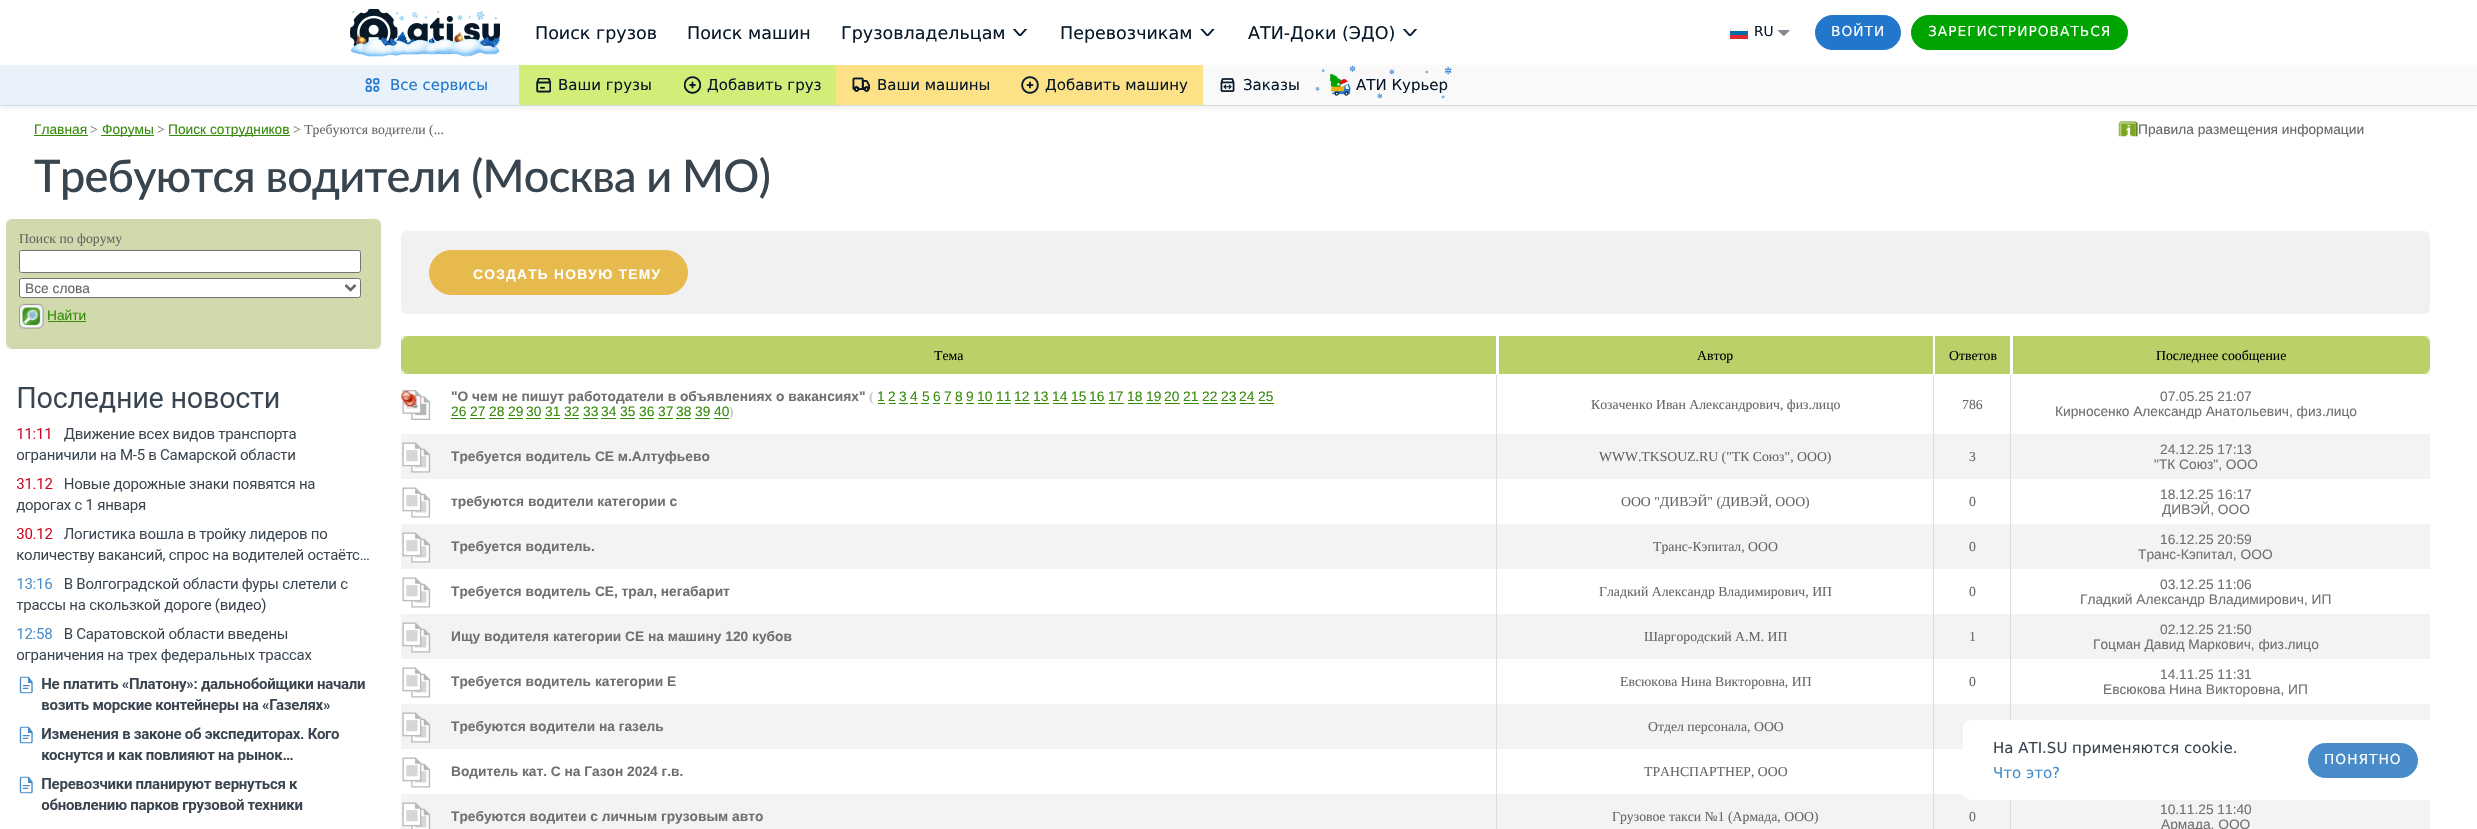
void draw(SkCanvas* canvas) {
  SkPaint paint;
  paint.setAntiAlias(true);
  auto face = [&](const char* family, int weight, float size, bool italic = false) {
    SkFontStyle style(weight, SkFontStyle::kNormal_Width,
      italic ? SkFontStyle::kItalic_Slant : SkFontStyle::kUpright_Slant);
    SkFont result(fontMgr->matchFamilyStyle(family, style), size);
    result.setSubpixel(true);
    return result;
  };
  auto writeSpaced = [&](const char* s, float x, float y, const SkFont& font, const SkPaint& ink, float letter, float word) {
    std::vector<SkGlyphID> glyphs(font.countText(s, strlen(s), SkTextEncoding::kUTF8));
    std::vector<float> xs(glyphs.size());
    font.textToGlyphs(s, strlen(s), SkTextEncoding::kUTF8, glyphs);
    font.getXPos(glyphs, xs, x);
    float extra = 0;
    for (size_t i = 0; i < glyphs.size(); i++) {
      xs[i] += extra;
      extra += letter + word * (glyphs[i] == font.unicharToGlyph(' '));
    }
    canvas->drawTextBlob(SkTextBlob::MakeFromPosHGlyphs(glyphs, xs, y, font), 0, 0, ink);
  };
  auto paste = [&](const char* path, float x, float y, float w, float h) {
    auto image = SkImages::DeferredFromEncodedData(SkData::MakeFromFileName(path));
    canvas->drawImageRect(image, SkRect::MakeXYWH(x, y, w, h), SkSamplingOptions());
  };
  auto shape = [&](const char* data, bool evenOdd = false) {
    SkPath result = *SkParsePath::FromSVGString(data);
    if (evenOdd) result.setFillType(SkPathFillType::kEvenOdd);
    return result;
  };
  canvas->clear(0xffffffff);
  paste("img/1.png", 350, 9, 150, 47);
  paste("img/2.png", 351, 10, 149, 47);
  paste("img/3.png", 1013, 29, 15, 7);
  paste("img/4.png", 1200, 29, 15, 7);
  paste("img/3.png", 1403, 29, 15, 7);
  paste("img/5.png", 1730, 28, 18, 11);
  paste("img/6.png", 1778, 30, 12, 6);
  paint.setColor(0xff2277cc);
  canvas->drawRoundRect(SkRect::MakeXYWH(1815.5f, 15.5f, 85, 34), 17, 17, paint);
  paint.setStroke(true);
  paint.setStrokeWidth(1);
  canvas->drawRoundRect(SkRect::MakeXYWH(1815.5f, 15.5f, 85, 34), 17, 17, paint);
  paint.setStroke(false);
  paint.setColor(0xff00a400);
  canvas->drawRoundRect(SkRect::MakeXYWH(1911.5f, 15.5f, 216, 34), 17, 17, paint);
  paint.setStroke(true);
  canvas->drawRoundRect(SkRect::MakeXYWH(1911.5f, 15.5f, 216, 34), 17, 17, paint);
  paint.setStroke(false);
  paint.setColor(0xffe6e8ea);
  canvas->drawRect(SkRect::MakeXYWH(0, 105, 2477, 1), paint);
  paint.setColor(0x14071829);
  paint.setMaskFilter(SkMaskFilter::MakeBlur(kNormal_SkBlurStyle, 2.5f));
  canvas->drawRect(SkRect::MakeXYWH(0, 68, 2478, 40), paint);
  paint.setMaskFilter(nullptr);
  paint.setColor(0xfff9f9fa);
  canvas->drawRect(SkRect::MakeXYWH(1203, 65, 1274, 40), paint);
  paint.setColor(0xffe9f1fa);
  canvas->drawRect(SkRect::MakeXYWH(0, 65, 519, 40), paint);
  paste("img/7.png", 365, 78, 15, 14);
  paint.setColor(0xffd3ee78);
  canvas->drawRect(SkRect::MakeXYWH(519, 65, 317, 40), paint);
  paste("img/8.png", 536, 78, 15, 15);
  paste("img/9.png", 684, 76, 17, 18);
  paint.setColor(0xfffde186);
  canvas->drawRect(SkRect::MakeXYWH(836, 65, 367, 40), paint);
  paste("img/10.png", 852, 77, 18, 15);
  paste("img/11.png", 1021, 76, 18, 18);
  paste("img/12.png", 1220, 78, 15, 14);
  paste("img/14.png", 1330, 74, 21, 22);
  {
    const struct { float x, y, w, h; SkColor color; } items[] = {
      {401, 704, 2029, 45, 0xfff3f3f3},
      {401, 794, 2029, 35, 0xfff3f3f3},
      {2010, 794, 1, 35, 0xffdddddd},
    };
    for (auto [x, y, w, h, color] : items) {
      paint.setColor(color);
      canvas->drawRect(SkRect::MakeXYWH(x, y, w, h), paint);
    }
  }
  paint.setColor(0xffffffff);
  canvas->drawRoundRect(SkRect::MakeXYWH(1963, 720, 485, 80), 8, 8, paint);
  paint.setColor(0xff478cc8);
  canvas->drawRoundRect(SkRect::MakeXYWH(2308.5f, 743.5f, 109, 34), 17, 17, paint);
  paint.setStroke(true);
  canvas->drawRoundRect(SkRect::MakeXYWH(2308.5f, 743.5f, 109, 34), 17, 17, paint);
  paint.setStroke(false);
  {
    const struct { float x, y, w, h; SkColor color; } items[] = {
      {34, 135, 54, 1, 0xff358b0a},
      {101, 135, 53, 1, 0xff358b0a},
      {169, 135, 121, 1, 0xff358b0a},
    };
    for (auto [x, y, w, h, color] : items) {
      paint.setColor(color);
      canvas->drawRect(SkRect::MakeXYWH(x, y, w, h), paint);
    }
  }
  paste("img/15.png", 2118, 121, 20, 16);
  paint.setColor(0xffd0daac);
  canvas->drawRect(SkRect::MakeXYWH(6, 219, 375, 130), paint);
  paste("img/16.png", 6, 218, 7, 7);
  paste("img/17.png", 6, 343, 6, 6);
  paint.setColor(0xffffffff);
  canvas->drawRoundRect(SkRect::MakeXYWH(19.5f, 250.5f, 341, 22), 2, 2, paint);
  paint.setStroke(true);
  paint.setColor(0xff767676);
  canvas->drawRoundRect(SkRect::MakeXYWH(19.5f, 250.5f, 341, 22), 2, 2, paint);
  paint.setStroke(false);
  paint.setColor(0xffffffff);
  canvas->drawRoundRect(SkRect::MakeXYWH(19.5f, 278.5f, 341, 19), 2, 2, paint);
  paint.setStroke(true);
  paint.setColor(0xff767676);
  canvas->drawRoundRect(SkRect::MakeXYWH(19.5f, 278.5f, 341, 19), 2, 2, paint);
  paint.setStrokeWidth(2.5f);
  paint.setColor(0xff666666);
  canvas->drawPath(shape("M345.5 285L350.5 290L355.5 285"), paint);
  paste("img/18.png", 19, 303, 25, 26);
  paint.setStroke(false);
  paint.setColor(0xff358b0a);
  canvas->drawRect(SkRect::MakeXYWH(48, 321, 38, 1), paint);
  paste("img/19.png", 375, 218, 7, 7);
  paste("img/20.png", 375, 342, 7, 7);
  paste("img/21.png", 16, 387, 353, 426);
  paint.setColor(0xfff1f1f1);
  canvas->drawRoundRect(SkRect::MakeXYWH(401, 231, 2029, 83), 6, 6, paint);
  paint.setColor(0xffe6ba4d);
  canvas->drawRoundRect(SkRect::MakeXYWH(429.5f, 250.5f, 258, 44), 22, 22, paint);
  paint.setStroke(true);
  paint.setStrokeWidth(1);
  canvas->drawRoundRect(SkRect::MakeXYWH(429.5f, 250.5f, 258, 44), 22, 22, paint);
  paint.setStroke(false);
  paint.setColor(0xffbad169);
  canvas->drawRect(SkRect::MakeXYWH(401, 336, 1095, 38), paint);
  paste("img/22.png", 401, 336, 7, 7);
  paste("img/23.png", 401, 367, 7, 7);
  {
    const struct { float x, y, w, h; SkColor color; } items[] = {
      {1499, 336, 434, 38, 0xffbad169},
      {1935, 336, 75, 38, 0xffbad169},
      {2013, 336, 417, 38, 0xffbad169},
    };
    for (auto [x, y, w, h, color] : items) {
      paint.setColor(color);
      canvas->drawRect(SkRect::MakeXYWH(x, y, w, h), paint);
    }
  }
  paste("img/24.png", 2424, 336, 6, 7);
  paste("img/25.png", 2424, 367, 6, 7);
  {
    const struct { float x, y, w, h; SkColor color; } items[] = {
      {401, 434, 2029, 45, 0xfff3f3f3},
      {401, 524, 2029, 45, 0xfff3f3f3},
      {401, 614, 2029, 45, 0xfff3f3f3},
      {1496, 374, 1, 455, 0xffdddddd},
      {1496, 374, 1, 1, 0xffffffff},
      {1933, 374, 1, 455, 0xffdddddd},
      {1933, 374, 1, 1, 0xffffffff},
      {2010, 374, 1, 346, 0xffdddddd},
      {2010, 374, 1, 1, 0xffffffff},
    };
    for (auto [x, y, w, h, color] : items) {
      paint.setColor(color);
      canvas->drawRect(SkRect::MakeXYWH(x, y, w, h), paint);
    }
  }
  paste("img/26.png", 401, 390, 30, 30);
  {
    const struct { float x, y, w, h; SkColor color; } items[] = {
      {878, 403, 7, 1, 0xff358b0a},
      {889, 403, 7, 1, 0xff358b0a},
      {899, 403, 9, 1, 0xff358b0a},
      {910, 403, 8, 1, 0xff358b0a},
      {921, 403, 8, 1, 0xff358b0a},
      {933, 403, 7, 1, 0xff358b0a},
      {944, 403, 7, 1, 0xff358b0a},
      {955, 403, 8, 1, 0xff358b0a},
      {966, 403, 8, 1, 0xff358b0a},
      {978, 403, 15, 1, 0xff358b0a},
      {996, 403, 15, 1, 0xff358b0a},
      {1015, 403, 15, 1, 0xff358b0a},
      {1034, 403, 15, 1, 0xff358b0a},
      {1053, 403, 15, 1, 0xff358b0a},
      {1071, 403, 15, 1, 0xff358b0a},
      {1090, 403, 15, 1, 0xff358b0a},
      {1109, 403, 15, 1, 0xff358b0a},
      {1128, 403, 15, 1, 0xff358b0a},
      {1146, 403, 15, 1, 0xff358b0a},
      {1165, 403, 15, 1, 0xff358b0a},
      {1184, 403, 15, 1, 0xff358b0a},
      {1203, 403, 15, 1, 0xff358b0a},
      {1221, 403, 15, 1, 0xff358b0a},
      {1240, 403, 15, 1, 0xff358b0a},
      {1259, 403, 15, 1, 0xff358b0a},
      {451, 418, 15, 1, 0xff358b0a},
      {470, 418, 15, 1, 0xff358b0a},
      {489, 418, 15, 1, 0xff358b0a},
      {508, 418, 15, 1, 0xff358b0a},
      {526, 418, 15, 1, 0xff358b0a},
      {545, 418, 15, 1, 0xff358b0a},
      {564, 418, 15, 1, 0xff358b0a},
      {583, 418, 15, 1, 0xff358b0a},
      {601, 418, 15, 1, 0xff358b0a},
      {620, 418, 15, 1, 0xff358b0a},
      {639, 418, 15, 1, 0xff358b0a},
      {658, 418, 15, 1, 0xff358b0a},
      {676, 418, 15, 1, 0xff358b0a},
      {695, 418, 15, 1, 0xff358b0a},
      {714, 418, 15, 1, 0xff358b0a},
    };
    for (auto [x, y, w, h, color] : items) {
      paint.setColor(color);
      canvas->drawRect(SkRect::MakeXYWH(x, y, w, h), paint);
    }
  }
  paste("img/27.png", 402, 442, 29, 31);
  paste("img/28.png", 402, 487, 29, 31);
  paste("img/27.png", 402, 532, 29, 31);
  paste("img/29.png", 402, 577, 29, 31);
  paste("img/27.png", 402, 622, 29, 31);
  paste("img/28.png", 402, 667, 29, 31);
  paste("img/27.png", 402, 712, 29, 31);
  paste("img/28.png", 402, 757, 29, 31);
  paste("img/30.png", 402, 802, 29, 27);
  auto f0 = face("DejaVu Sans", 400, 17.5f);
  paint.setColor(0xff071829);
  {
    const struct { const char* s; float x, y; } items[] = {
      {"Поиск грузов", 535, 39},
      {"Поиск машин", 687, 39},
      {"Грузовладельцам", 841, 39},
      {"Перевозчикам", 1060, 39},
      {"АТИ-Доки (ЭДО)", 1248, 39},
    };
    for (auto [s, x, y] : items) {
      canvas->drawString(s, x, y, f0, paint);
    }
  }
  auto f1 = face("DejaVu Sans", 400, 13.75f);
  canvas->drawString("RU", 1754, 36, f1, paint);
  paint.setColor(0xffffffff);
  writeSpaced("ВОЙТИ", 1831, 36, f1, paint, 1, 0);
  writeSpaced("ЗАРЕГИСТРИРОВАТЬСЯ", 1928, 36, f1, paint, 1, 0);
  auto f2 = face("DejaVu Sans", 400, 15);
  paint.setColor(0xff2277cc);
  canvas->drawString("Все сервисы", 390, 90, f2, paint);
  paint.setColor(0xff071829);
  {
    const struct { const char* s; float x, y; } items[] = {
      {"Ваши грузы", 558, 90},
      {"Добавить груз", 707, 90},
      {"Ваши машины", 877, 90},
      {"Добавить машину", 1045, 90},
      {"Заказы", 1243, 90},
      {"АТИ Курьер", 1356, 90},
    };
    for (auto [s, x, y] : items) {
      canvas->drawString(s, x, y, f2, paint);
    }
  }
  paste("img/13.png", 1315, 65, 137, 34);
  paint.setColor(0xff38444e);
  canvas->drawString("На ATI.SU применяются cookie.", 1993, 753, f2, paint);
  paint.setColor(0xff478cc8);
  canvas->drawString("Что это?", 1993, 778, f2, paint);
  paint.setColor(0xffffffff);
  writeSpaced("ПОНЯТНО", 2324, 764, f1, paint, 1, 0);
  auto f3 = face("Liberation Sans", 400, 13.75f);
  paint.setColor(0xff358b0a);
  canvas->drawString("Главная", 34, 134, f3, paint);
  auto f4 = face("Liberation Serif", 400, 13.75f);
  paint.setColor(0xff666666);
  canvas->drawString(">", 90, 134, f4, paint);
  paint.setColor(0xff358b0a);
  canvas->drawString("Форумы", 102, 134, f3, paint);
  paint.setColor(0xff666666);
  canvas->drawString(">", 157, 134, f4, paint);
  paint.setColor(0xff358b0a);
  canvas->drawString("Поиск сотрудников", 168, 134, f3, paint);
  paint.setColor(0xff666666);
  canvas->drawString("> Требуются водители (...", 293, 134, f4, paint);
  canvas->drawString("Правила размещения информации", 2138, 134, f3, paint);
  auto f5 = face("Lato", 500, 45);
  paint.setColor(0xff38444e);
  writeSpaced("Требуются водители (Москва и МО)", 34, 192, f5, paint, -0.75f, 0);
  paint.setColor(0xff666666);
  canvas->drawString("Поиск по форуму", 19, 243, f4, paint);
  canvas->drawString("Все слова", 25, 293, f3, paint);
  paint.setColor(0xff358b0a);
  canvas->drawString("Найти", 47, 320, f3, paint);
  auto f6 = face("Liberation Sans", 700, 13.75f);
  paint.setColor(0xffffffff);
  writeSpaced("СОЗДАТЬ НОВУЮ ТЕМУ", 473, 279, f6, paint, 1.25f, 0);
  paint.setColor(0xff000000);
  {
    const struct { const char* s; float x, y; } items[] = {
      {"Тема", 934, 360},
      {"Автор", 1697, 360},
      {"Ответов", 1949, 360},
      {"Последнее сообщение", 2156, 360},
    };
    for (auto [s, x, y] : items) {
      canvas->drawString(s, x, y, f4, paint);
    }
  }
  paint.setColor(0xff707070);
  canvas->drawString("\"О чем не пишут работодатели в объявлениях о вакансиях\"", 451, 401, f6, paint);
  auto f7 = face("Liberation Serif", 700, 13.75f);
  paint.setColor(0xffcccccc);
  canvas->drawString("(", 869, 401, f7, paint);
  paint.setColor(0xff358b0a);
  {
    const struct { const char* s; float x, y; } items[] = {
      {"1", 877, 401},
      {"2", 888, 401},
      {"3", 899, 401},
      {"4", 910, 401},
      {"5", 922, 401},
      {"6", 933, 401},
      {"7", 944, 401},
      {"8", 955, 401},
      {"9", 966, 401},
      {"10", 977, 401},
      {"11", 996, 401},
      {"12", 1014, 401},
      {"13", 1033, 401},
      {"14", 1052, 401},
      {"15", 1071, 401},
      {"16", 1089, 401},
      {"17", 1108, 401},
      {"18", 1127, 401},
      {"19", 1146, 401},
      {"20", 1164, 401},
      {"21", 1183, 401},
      {"22", 1202, 401},
      {"23", 1221, 401},
      {"24", 1239, 401},
      {"25", 1258, 401},
      {"26", 451, 416},
      {"27", 470, 416},
      {"28", 489, 416},
      {"29", 508, 416},
      {"30", 526, 416},
      {"31", 545, 416},
      {"32", 564, 416},
      {"33", 583, 416},
      {"34", 601, 416},
      {"35", 620, 416},
      {"36", 639, 416},
      {"37", 658, 416},
      {"38", 676, 416},
      {"39", 695, 416},
      {"40", 714, 416},
    };
    for (auto [s, x, y] : items) {
      canvas->drawString(s, x, y, f3, paint);
    }
  }
  paint.setColor(0xffcccccc);
  canvas->drawString(")", 729, 416, f7, paint);
  paint.setColor(0xff666666);
  canvas->drawString("Козаченко Иван Александрович, физ.лицо", 1591, 409, f4, paint);
  canvas->drawString("786", 1962, 409, f4, paint);
  paint.setColor(0xff707070);
  canvas->drawString("07.05.25 21:07", 2160, 401, f3, paint);
  canvas->drawString("Кирносенко Александр Анатольевич, физ.лицо", 2055, 416, f3, paint);
  canvas->drawString("Требуется водитель СЕ м.Алтуфьево", 451, 461, f6, paint);
  paint.setColor(0xff666666);
  canvas->drawString("WWW.TKSOUZ.RU (\"ТК Союз\", ООО)", 1599, 461, f4, paint);
  canvas->drawString("3", 1969, 461, f4, paint);
  paint.setColor(0xff707070);
  canvas->drawString("24.12.25 17:13", 2160, 454, f3, paint);
  canvas->drawString("\"ТК Союз\", ООО", 2154, 469, f3, paint);
  canvas->drawString("требуются водители категории с", 451, 506, f6, paint);
  paint.setColor(0xff666666);
  canvas->drawString("ООО \"ДИВЭЙ\" (ДИВЭЙ, ООО)", 1621, 506, f4, paint);
  canvas->drawString("0", 1969, 506, f4, paint);
  paint.setColor(0xff707070);
  canvas->drawString("18.12.25 16:17", 2160, 499, f3, paint);
  canvas->drawString("ДИВЭЙ, ООО", 2162, 514, f3, paint);
  canvas->drawString("Требуется водитель.", 451, 551, f6, paint);
  paint.setColor(0xff666666);
  canvas->drawString("Транс-Кэпитал, ООО", 1653, 551, f4, paint);
  canvas->drawString("0", 1969, 551, f4, paint);
  paint.setColor(0xff707070);
  canvas->drawString("16.12.25 20:59", 2160, 544, f3, paint);
  canvas->drawString("Транс-Кэпитал, ООО", 2138, 559, f3, paint);
  canvas->drawString("Требуется водитель СЕ, трал, негабарит", 451, 596, f6, paint);
  paint.setColor(0xff666666);
  canvas->drawString("Гладкий Александр Владимирович, ИП", 1599, 596, f4, paint);
  canvas->drawString("0", 1969, 596, f4, paint);
  paint.setColor(0xff707070);
  canvas->drawString("03.12.25 11:06", 2160, 589, f3, paint);
  canvas->drawString("Гладкий Александр Владимирович, ИП", 2080, 604, f3, paint);
  canvas->drawString("Ищу водителя категории СЕ на машину 120 кубов", 451, 641, f6, paint);
  paint.setColor(0xff666666);
  canvas->drawString("Шаргородский А.М. ИП", 1644, 641, f4, paint);
  canvas->drawString("1", 1969, 641, f4, paint);
  paint.setColor(0xff707070);
  canvas->drawString("02.12.25 21:50", 2160, 634, f3, paint);
  canvas->drawString("Гоцман Давид Маркович, физ.лицо", 2093, 649, f3, paint);
  canvas->drawString("Требуется водитель категории Е", 451, 686, f6, paint);
  paint.setColor(0xff666666);
  canvas->drawString("Евсюкова Нина Викторовна, ИП", 1620, 686, f4, paint);
  canvas->drawString("0", 1969, 686, f4, paint);
  paint.setColor(0xff707070);
  canvas->drawString("14.11.25 11:31", 2160, 679, f3, paint);
  canvas->drawString("Евсюкова Нина Викторовна, ИП", 2103, 694, f3, paint);
  canvas->drawString("Требуются водители на газель", 451, 731, f6, paint);
  paint.setColor(0xff666666);
  canvas->drawString("Отдел персонала, ООО", 1648, 731, f4, paint);
  paint.setColor(0xff707070);
  canvas->drawString("Водитель кат. С на Газон 2024 г.в.", 451, 776, f6, paint);
  paint.setColor(0xff666666);
  canvas->drawString("ТРАНСПАРТНЕР, ООО", 1644, 776, f4, paint);
  paint.setColor(0xff707070);
  canvas->drawString("Требуются водитеи с личным грузовым авто", 451, 821, f6, paint);
  paint.setColor(0xff666666);
  canvas->drawString("Грузовое такси №1 (Армада, ООО)", 1612, 821, f4, paint);
  canvas->drawString("0", 1969, 821, f4, paint);
  paint.setColor(0xff707070);
  canvas->drawString("10.11.25 11:40", 2160, 814, f3, paint);
  canvas->drawString("Армада, ООО", 2161, 829, f3, paint);
}
